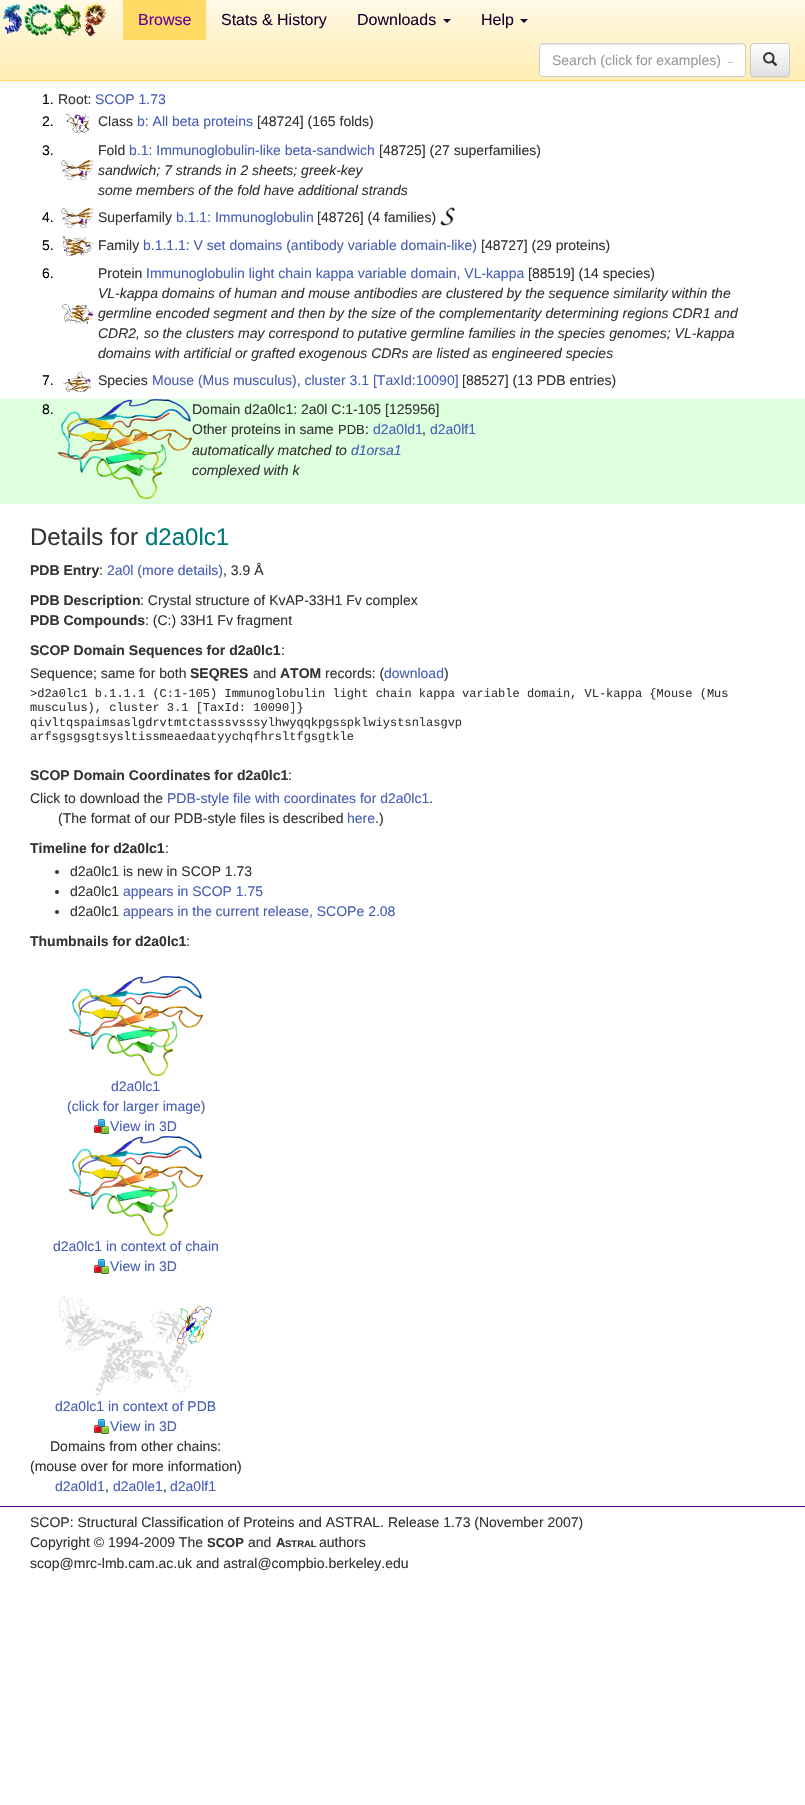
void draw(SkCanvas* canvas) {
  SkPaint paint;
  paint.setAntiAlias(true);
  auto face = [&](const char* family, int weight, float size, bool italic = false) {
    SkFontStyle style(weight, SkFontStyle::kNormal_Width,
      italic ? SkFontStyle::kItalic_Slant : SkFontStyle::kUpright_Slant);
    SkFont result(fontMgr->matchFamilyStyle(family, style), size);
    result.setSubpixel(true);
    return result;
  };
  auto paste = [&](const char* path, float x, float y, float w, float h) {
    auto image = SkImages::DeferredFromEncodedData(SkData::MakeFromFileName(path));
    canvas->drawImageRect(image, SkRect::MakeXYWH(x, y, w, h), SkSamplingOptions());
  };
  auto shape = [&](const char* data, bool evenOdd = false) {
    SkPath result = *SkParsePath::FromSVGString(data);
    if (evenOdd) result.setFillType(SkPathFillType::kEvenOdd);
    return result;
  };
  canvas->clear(0xffffffff);
  paint.setColor(0x12000000);
  paint.setMaskFilter(SkMaskFilter::MakeBlur(kNormal_SkBlurStyle, 2.5f));
  canvas->drawRect(SkRect::MakeXYWH(0, 1, 805, 81), paint);
  paint.setMaskFilter(nullptr);
  {
    const SkColor colors[] = {0xfffff9e6, 0xffffedb3};
    const float stops[] = {0, 1};
    const SkPoint ends[] = {{403, 0}, {403, 80}};
    paint.setShader(SkGradientShader::MakeLinear(ends, colors, stops, 2, SkTileMode::kClamp));
    paint.setAlpha(255);
  }
  canvas->drawRect(SkRect::MakeXYWH(0, 1, 805, 79), paint);
  paint.setShader(nullptr);
  paint.setColor(0xfffffaea);
  canvas->drawRect(SkRect::MakeXYWH(0, 0, 805, 1), paint);
  paint.setColor(0xffffda65);
  canvas->drawRect(SkRect::MakeXYWH(0, 80, 805, 1), paint);
  paste("img/1.png", 3, 3, 103, 34);
  canvas->drawRect(SkRect::MakeXYWH(123, 0, 83, 40), paint);
  paint.setColor(0xff1d002b);
  canvas->drawPath(shape("M443 19H451L447 23Z"), paint);
  canvas->drawPath(shape("M520 19H528L524 23Z"), paint);
  paint.setColor(0xffffffff);
  canvas->drawRoundRect(SkRect::MakeXYWH(539, 43, 207, 34), 4, 4, paint);
  paint.setColor(0xffececec);
  canvas->drawPath(shape("M543 45H742C744 45 745 46 745 48C745 46 744 44 742 44H543C541 44 540 46 540 48C540 46 541 45 543 45Z"), paint);
  paint.setStroke(true);
  paint.setStrokeWidth(1);
  paint.setColor(0xffcccccc);
  canvas->drawRoundRect(SkRect::MakeXYWH(539.5f, 43.5f, 206, 33), 3.5f, 3.5f, paint);
  paint.setStroke(false);
  paint.setColor(0x12000000);
  paint.setMaskFilter(SkMaskFilter::MakeBlur(kNormal_SkBlurStyle, 0.5f));
  canvas->drawRoundRect(SkRect::MakeXYWH(750, 44, 40, 34), 4, 4, paint);
  paint.setMaskFilter(nullptr);
  canvas->save();
  canvas->clipPath(shape("M754 43H786C788 43 790 45 790 47V73C790 75 788 77 786 77H754C752 77 750 75 750 73V47C750 45 752 43 754 43Z"), true);
  {
    const SkColor colors[] = {0xffffffff, 0xffe0e0e0};
    const float stops[] = {0, 1};
    const SkPoint ends[] = {{770, 44}, {770, 76}};
    paint.setShader(SkGradientShader::MakeLinear(ends, colors, stops, 2, SkTileMode::kClamp));
    paint.setAlpha(255);
  }
  canvas->drawRect(SkRect::MakeXYWH(750, 44, 40, 32), paint);
  canvas->restore();
  paint.setStroke(true);
  paint.setShader(nullptr);
  paint.setColor(0xffcccccc);
  canvas->drawRoundRect(SkRect::MakeXYWH(750.5f, 43.5f, 39, 33), 3.5f, 3.5f, paint);
  paste("img/2.png", 763, 52, 15, 14);
  paste("img/3.png", 66, 113, 23, 20);
  paste("img/4.png", 61, 160, 32, 20);
  paste("img/4.png", 61, 208, 32, 20);
  paste("img/5.png", 440, 207, 15, 19);
  paste("img/6.png", 62, 236, 31, 20);
  paste("img/7.png", 62, 304, 31, 20);
  paste("img/8.png", 63, 372, 28, 20);
  paint.setStroke(false);
  paint.setColor(0xffddffdd);
  canvas->drawRect(SkRect::MakeXYWH(0, 399, 805, 105), paint);
  paste("img/9.png", 58, 399, 134, 100);
  paint.setColor(0xff333333);
  canvas->drawCircle(57, 872, 2, paint);
  canvas->drawCircle(57, 892, 2, paint);
  canvas->drawCircle(57, 912, 2, paint);
  paste("img/10.png", 69, 976, 134, 100);
  paste("img/11.png", 94, 1119, 15, 15);
  paste("img/10.png", 69, 1136, 134, 100);
  paste("img/11.png", 94, 1259, 15, 15);
  paste("img/12.png", 59, 1296, 153, 100);
  paste("img/11.png", 94, 1419, 15, 15);
  paint.setColor(0xff660099);
  canvas->drawRect(SkRect::MakeXYWH(0, 1506, 805, 1), paint);
  auto f0 = face("Liberation Sans", 400, 16);
  canvas->drawString("Browse", 138, 25, f0, paint);
  paint.setColor(0xff1d002b);
  {
    const struct { const char* s; float x, y; } items[] = {
      {"Stats & History", 221, 25},
      {"Downloads", 357, 25},
      {"Help", 481, 25},
    };
    for (auto [s, x, y] : items) {
      canvas->drawString(s, x, y, f0, paint);
    }
  }
  canvas->save();
  canvas->clipRect(SkRect::MakeXYWH(552, 52, 181, 16));
  auto f1 = face("Liberation Sans", 400, 14);
  paint.setColor(0xff999999);
  canvas->drawString("Search (click for examples) →", 552, 65, f1, paint);
  canvas->restore();
  paint.setColor(0xff000000);
  canvas->drawString("1.", 42, 104, f1, paint);
  paint.setColor(0xff333333);
  canvas->drawString("Root:", 58, 104, f1, paint);
  paint.setColor(0xff465eb4);
  canvas->drawString("SCOP 1.73", 95, 104, f1, paint);
  paint.setColor(0xff000000);
  canvas->drawString("2.", 42, 126, f1, paint);
  paint.setColor(0xff333333);
  canvas->drawString("Class", 98, 126, f1, paint);
  paint.setColor(0xff465eb4);
  canvas->drawString("b: All beta proteins", 137, 126, f1, paint);
  paint.setColor(0xff333333);
  canvas->drawString("[48724] (165 folds)", 257, 126, f1, paint);
  paint.setColor(0xff000000);
  canvas->drawString("3.", 42, 155, f1, paint);
  paint.setColor(0xff333333);
  canvas->drawString("Fold", 98, 155, f1, paint);
  paint.setColor(0xff465eb4);
  canvas->drawString("b.1: Immunoglobulin-like beta-sandwich", 129, 155, f1, paint);
  paint.setColor(0xff333333);
  canvas->drawString("[48725] (27 superfamilies)", 379, 155, f1, paint);
  auto f2 = face("Liberation Sans", 400, 14, true);
  canvas->drawString("sandwich; 7 strands in 2 sheets; greek-key", 98, 175, f2, paint);
  canvas->drawString("some members of the fold have additional strands", 98, 195, f2, paint);
  paint.setColor(0xff000000);
  canvas->drawString("4.", 42, 222, f1, paint);
  paint.setColor(0xff333333);
  canvas->drawString("Superfamily", 98, 222, f1, paint);
  paint.setColor(0xff465eb4);
  canvas->drawString("b.1.1: Immunoglobulin", 176, 222, f1, paint);
  paint.setColor(0xff333333);
  canvas->drawString("[48726] (4 families)", 317, 222, f1, paint);
  paint.setColor(0xff000000);
  canvas->drawString("5.", 42, 250, f1, paint);
  paint.setColor(0xff333333);
  canvas->drawString("Family", 98, 250, f1, paint);
  paint.setColor(0xff465eb4);
  canvas->drawString("b.1.1.1: V set domains (antibody variable domain-like)", 143, 250, f1, paint);
  paint.setColor(0xff333333);
  canvas->drawString("[48727] (29 proteins)", 481, 250, f1, paint);
  paint.setColor(0xff000000);
  canvas->drawString("6.", 42, 278, f1, paint);
  paint.setColor(0xff333333);
  canvas->drawString("Protein", 98, 278, f1, paint);
  paint.setColor(0xff465eb4);
  canvas->drawString("Immunoglobulin light chain kappa variable domain, VL-kappa", 146, 278, f1, paint);
  paint.setColor(0xff333333);
  canvas->drawString("[88519] (14 species)", 528, 278, f1, paint);
  {
    const struct { const char* s; float x, y; } items[] = {
      {"VL-kappa domains of human and mouse antibodies are clustered by the sequence similarity within the", 98, 298},
      {"germline encoded segment and then by the size of the complementarity determining regions CDR1 and", 98, 318},
      {"CDR2, so the clusters may correspond to putative germline families in the species genomes; VL-kappa", 98, 338},
      {"domains with artificial or grafted exogenous CDRs are listed as engineered species", 98, 358},
    };
    for (auto [s, x, y] : items) {
      canvas->drawString(s, x, y, f2, paint);
    }
  }
  paint.setColor(0xff000000);
  canvas->drawString("7.", 42, 385, f1, paint);
  paint.setColor(0xff333333);
  canvas->drawString("Species", 98, 385, f1, paint);
  paint.setColor(0xff465eb4);
  canvas->drawString("Mouse (Mus musculus), cluster 3.1 [TaxId:10090]", 152, 385, f1, paint);
  paint.setColor(0xff333333);
  canvas->drawString("[88527] (13 PDB entries)", 462, 385, f1, paint);
  paint.setColor(0xff000000);
  canvas->drawString("8.", 42, 414, f1, paint);
  paint.setColor(0xff333333);
  canvas->drawString("Domain d2a0lc1: 2a0l C:1-105 [125956]", 192, 414, f1, paint);
  canvas->drawString("Other proteins in same", 192, 434, f1, paint);
  auto f3 = face("Liberation Sans", 400, 13);
  canvas->drawString("PDB", 338, 434, f3, paint);
  canvas->drawString(":", 365, 434, f1, paint);
  paint.setColor(0xff465eb4);
  canvas->drawString("d2a0ld1", 373, 434, f1, paint);
  paint.setColor(0xff333333);
  canvas->drawString(",", 422, 434, f1, paint);
  paint.setColor(0xff465eb4);
  canvas->drawString("d2a0lf1", 430, 434, f1, paint);
  paint.setColor(0xff333333);
  canvas->drawString("automatically matched to", 192, 455, f2, paint);
  paint.setColor(0xff465eb4);
  canvas->drawString("d1orsa1", 351, 455, f2, paint);
  paint.setColor(0xff333333);
  canvas->drawString("complexed with k", 192, 475, f2, paint);
  auto f4 = face("Liberation Sans", 400, 24);
  canvas->drawString("Details for", 30, 545, f4, paint);
  paint.setColor(0xff007777);
  canvas->drawString("d2a0lc1", 145, 545, f4, paint);
  auto f5 = face("Liberation Sans", 700, 14);
  paint.setColor(0xff333333);
  canvas->drawString("PDB Entry", 30, 575, f5, paint);
  canvas->drawString(":", 99, 575, f1, paint);
  paint.setColor(0xff465eb4);
  canvas->drawString("2a0l (more details)", 107, 575, f1, paint);
  paint.setColor(0xff333333);
  canvas->drawString(", 3.9 Å", 223, 575, f1, paint);
  canvas->drawString("PDB Description", 30, 605, f5, paint);
  canvas->drawString(": Crystal structure of KvAP-33H1 Fv complex", 140, 605, f1, paint);
  canvas->drawString("PDB Compounds", 30, 625, f5, paint);
  canvas->drawString(": (C:) 33H1 Fv fragment", 145, 625, f1, paint);
  canvas->drawString("SCOP Domain Sequences for d2a0lc1", 30, 655, f5, paint);
  canvas->drawString(":", 281, 655, f1, paint);
  canvas->drawString("Sequence; same for both", 30, 678, f1, paint);
  canvas->drawString("SEQRES", 190, 678, f5, paint);
  canvas->drawString("and", 253, 678, f1, paint);
  canvas->drawString("ATOM", 280, 678, f5, paint);
  canvas->drawString("records: (", 325, 678, f1, paint);
  paint.setColor(0xff465eb4);
  canvas->drawString("download", 384, 678, f1, paint);
  paint.setColor(0xff333333);
  canvas->drawString(")", 444, 678, f1, paint);
  auto f6 = face("Liberation Mono", 400, 12);
  {
    const struct { const char* s; float x, y; } items[] = {
      {">d2a0lc1 b.1.1.1 (C:1-105) Immunoglobulin light chain kappa variable domain, VL-kappa {Mouse (Mus", 30, 697},
      {"musculus), cluster 3.1 [TaxId: 10090]}", 30, 711},
      {"qivltqspaimsaslgdrvtmtctasssvsssylhwyqqkpgsspklwiystsnlasgvp", 30, 726},
      {"arfsgsgsgtsysltissmeaedaatyychqfhrsltfgsgtkle", 30, 740},
    };
    for (auto [s, x, y] : items) {
      canvas->drawString(s, x, y, f6, paint);
    }
  }
  canvas->drawString("SCOP Domain Coordinates for d2a0lc1", 30, 780, f5, paint);
  canvas->drawString(":", 288, 780, f1, paint);
  canvas->drawString("Click to download the", 30, 803, f1, paint);
  paint.setColor(0xff465eb4);
  canvas->drawString("PDB-style file with coordinates for d2a0lc1", 167, 803, f1, paint);
  paint.setColor(0xff333333);
  canvas->drawString(".", 429, 803, f1, paint);
  canvas->drawString("(The format of our PDB-style files is described", 58, 823, f1, paint);
  paint.setColor(0xff465eb4);
  canvas->drawString("here", 347, 823, f1, paint);
  paint.setColor(0xff333333);
  canvas->drawString(".)", 375, 823, f1, paint);
  canvas->drawString("Timeline for d2a0lc1", 30, 853, f5, paint);
  {
    const struct { const char* s; float x, y; } items[] = {
      {":", 165, 853},
      {"d2a0lc1 is new in SCOP 1.73", 70, 876},
      {"d2a0lc1", 70, 896},
    };
    for (auto [s, x, y] : items) {
      canvas->drawString(s, x, y, f1, paint);
    }
  }
  paint.setColor(0xff465eb4);
  canvas->drawString("appears in SCOP 1.75", 123, 896, f1, paint);
  paint.setColor(0xff333333);
  canvas->drawString("d2a0lc1", 70, 916, f1, paint);
  paint.setColor(0xff465eb4);
  canvas->drawString("appears in the current release, SCOPe 2.08", 123, 916, f1, paint);
  paint.setColor(0xff333333);
  canvas->drawString("Thumbnails for d2a0lc1", 30, 946, f5, paint);
  canvas->drawString(":", 186, 946, f1, paint);
  paint.setColor(0xff465eb4);
  {
    const struct { const char* s; float x, y; } items[] = {
      {"d2a0lc1", 111, 1091},
      {"(click for larger image)", 67, 1111},
      {"View in 3D", 110, 1131},
      {"d2a0lc1 in context of chain", 53, 1251},
      {"View in 3D", 110, 1271},
      {"d2a0lc1 in context of PDB", 55, 1411},
      {"View in 3D", 110, 1431},
    };
    for (auto [s, x, y] : items) {
      canvas->drawString(s, x, y, f1, paint);
    }
  }
  paint.setColor(0xff333333);
  canvas->drawString("Domains from other chains:", 50, 1451, f1, paint);
  canvas->drawString("(mouse over for more information)", 30, 1471, f1, paint);
  paint.setColor(0xff465eb4);
  canvas->drawString("d2a0ld1", 55, 1491, f1, paint);
  paint.setColor(0xff333333);
  canvas->drawString(",", 105, 1491, f1, paint);
  paint.setColor(0xff465eb4);
  canvas->drawString("d2a0le1", 113, 1491, f1, paint);
  paint.setColor(0xff333333);
  canvas->drawString(",", 163, 1491, f1, paint);
  paint.setColor(0xff465eb4);
  canvas->drawString("d2a0lf1", 170, 1491, f1, paint);
  paint.setColor(0xff333333);
  canvas->drawString("SCOP: Structural Classification of Proteins and ASTRAL. Release 1.73 (November 2007)", 30, 1527, f1, paint);
  canvas->drawString("Copyright © 1994-2009 The", 30, 1547, f1, paint);
  auto f7 = face("Liberation Sans", 700, 13);
  canvas->drawString("SCOP", 207, 1547, f7, paint);
  canvas->drawString("and", 248, 1547, f1, paint);
  canvas->drawString("A", 276, 1547, f7, paint);
  auto f8 = face("Liberation Sans", 700, 9.5f);
  canvas->drawString("STRAL", 285, 1547, f8, paint);
  canvas->drawString("authors", 319, 1547, f1, paint);
  canvas->drawString("scop@mrc-lmb.cam.ac.uk and astral@compbio.berkeley.edu", 30, 1568, f1, paint);
}
